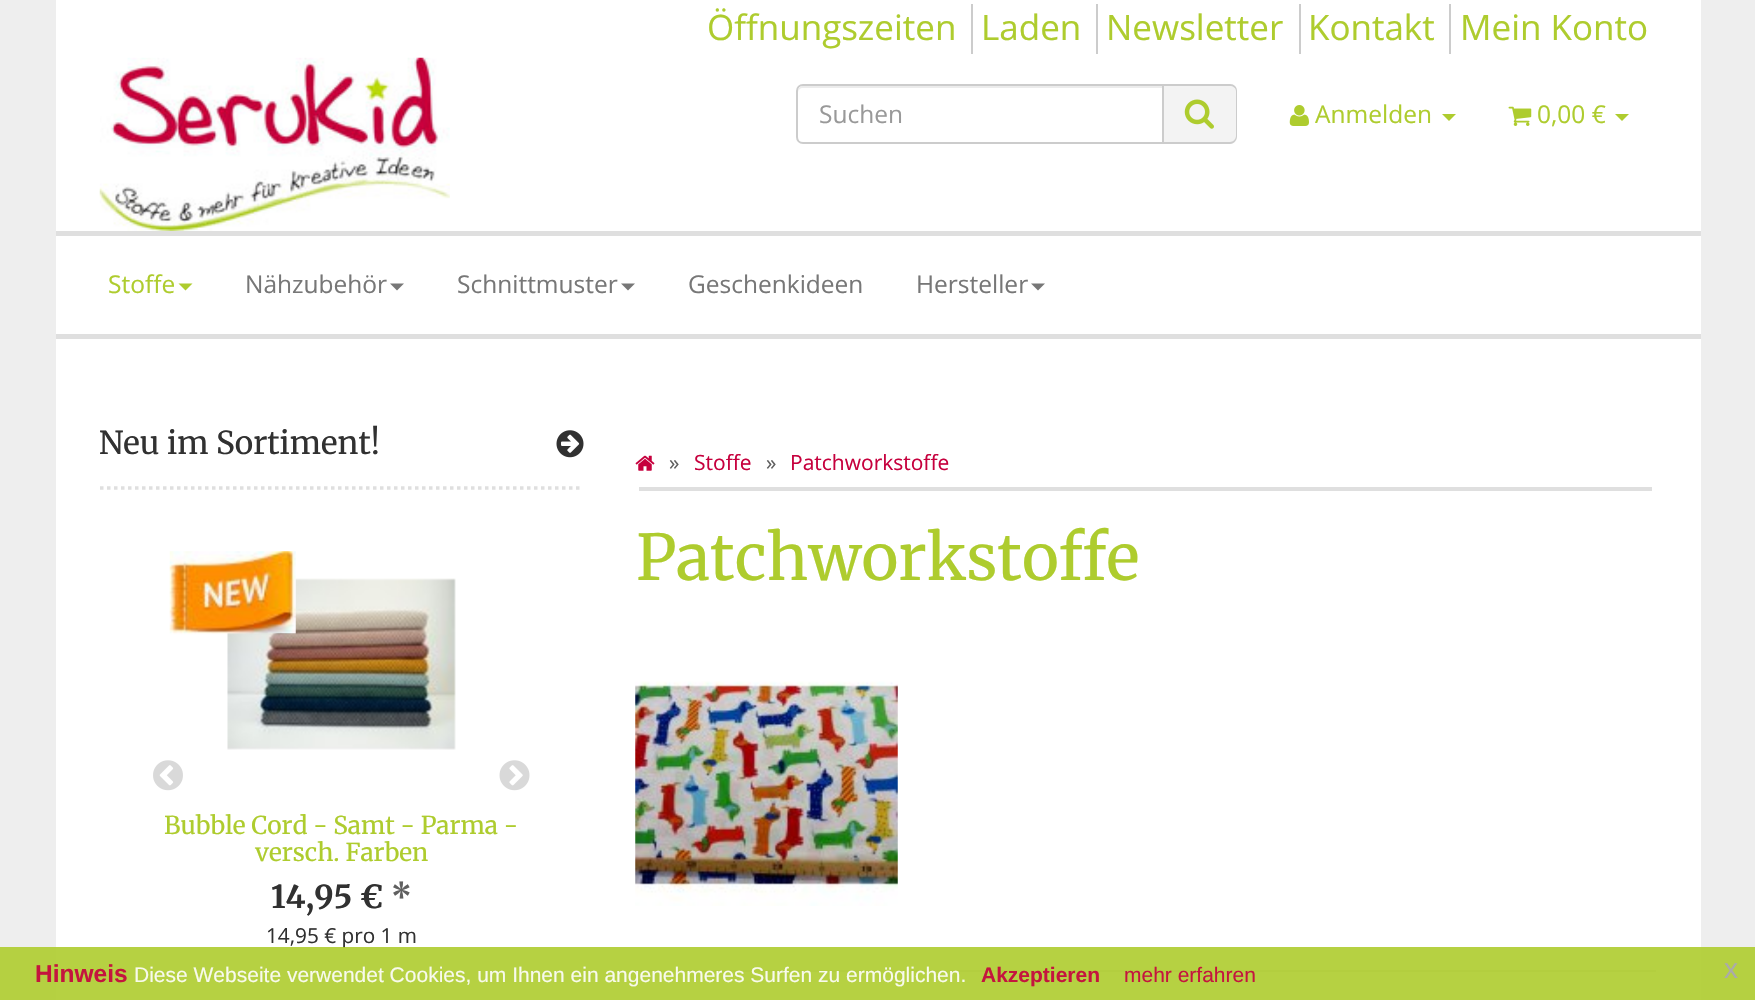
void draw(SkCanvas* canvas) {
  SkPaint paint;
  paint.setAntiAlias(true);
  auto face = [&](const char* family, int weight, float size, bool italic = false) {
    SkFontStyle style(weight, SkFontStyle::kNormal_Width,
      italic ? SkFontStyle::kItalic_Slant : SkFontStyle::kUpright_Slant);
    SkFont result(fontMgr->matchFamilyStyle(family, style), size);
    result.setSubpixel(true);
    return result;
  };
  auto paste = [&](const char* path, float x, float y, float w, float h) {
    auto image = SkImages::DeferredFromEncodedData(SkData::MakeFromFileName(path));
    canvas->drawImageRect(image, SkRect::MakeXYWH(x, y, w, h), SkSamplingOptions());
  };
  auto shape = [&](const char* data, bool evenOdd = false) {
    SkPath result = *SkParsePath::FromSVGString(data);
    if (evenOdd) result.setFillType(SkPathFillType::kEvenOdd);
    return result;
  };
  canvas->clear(0xffeeeeee);
  {
    const struct { float x, y, w, h; SkColor color; } items[] = {
      {56, 0, 1645, 231, 0xffffffff},
      {971, 4, 2, 50, 0xffcccccc},
      {1096, 4, 2, 50, 0xffcccccc},
      {1299, 4, 2, 50, 0xffcccccc},
      {1449, 4, 2, 50, 0xffcccccc},
    };
    for (auto [x, y, w, h, color] : items) {
      paint.setColor(color);
      canvas->drawRect(SkRect::MakeXYWH(x, y, w, h), paint);
    }
  }
  paste("img/1.png", 99, 57, 351, 174);
  paint.setColor(0xffececec);
  canvas->drawPath(shape("M803 88H1162V86H803C799 86 798 90 798 93C798 90 800 88 803 88Z"), paint);
  paint.setStroke(true);
  paint.setStrokeWidth(2);
  paint.setColor(0xffcccccc);
  canvas->drawPath(shape("M803 85H1163V143H803C799.5 143 797 140.5 797 137V91C797 87.5 799.5 85 803 85Z"), paint);
  paint.setStroke(false);
  paint.setColor(0xfff3f3f3);
  canvas->drawPath(shape("M1164 84H1230C1234 84 1237 87 1237 91V137C1237 141 1234 144 1230 144H1164Z"), paint);
  paint.setColor(0xffcccccc);
  canvas->drawPath(shape("M1164 84H1230C1234 84 1237 87 1237 91V136C1237 140 1234 144 1230 144H1164ZM1164 86H1230C1233 86 1236 88 1236 91V136C1236 139 1233 142 1230 142H1164Z", true), paint);
  paste("img/2.png", 1184, 99, 30, 30);
  paste("img/3.png", 1289, 105, 20, 21);
  paint.setColor(0xffaecc2e);
  canvas->drawPath(shape("M1442 114H1456L1449 121Z"), paint);
  paste("img/4.png", 1508, 106, 24, 20);
  canvas->drawPath(shape("M1615 114H1629L1622 121Z"), paint);
  {
    const struct { float x, y, w, h; SkColor color; } items[] = {
      {56, 236, 1645, 764, 0xffffffff},
      {56, 231, 1645, 5, 0xffdfdfdf},
      {56, 334, 1645, 5, 0xffdfdfdf},
    };
    for (auto [x, y, w, h, color] : items) {
      paint.setColor(color);
      canvas->drawRect(SkRect::MakeXYWH(x, y, w, h), paint);
    }
  }
  paint.setColor(0xffaecc2e);
  canvas->drawPath(shape("M178.5 283.5H192.5L185.5 290.5Z"), paint);
  paint.setColor(0xff777777);
  canvas->drawPath(shape("M390 283.5H404L397 290.5Z"), paint);
  canvas->drawPath(shape("M621 283.5H635L628 290.5Z"), paint);
  canvas->drawPath(shape("M1031 283.5H1045L1038 290.5Z"), paint);
  paint.setStroke(true);
  paint.setStrokeWidth(3.5f);
  paint.setColor(0xffdfdfdf);
  paint.setPathEffect(SkDashPathEffect::Make({{3.5f, 3.5f}}, 0));
  canvas->drawPath(shape("M100 488H583"), paint);
  paint.setPathEffect(nullptr);
  paste("img/5.png", 556, 430, 28, 28);
  paste("img/6.png", 153, 760, 30, 31);
  paste("img/7.png", 499, 760, 31, 31);
  paste("img/9.png", 227, 578, 229, 172);
  paste("img/8.png", 169, 551, 127, 84);
  paint.setStroke(false);
  canvas->drawRect(SkRect::MakeXYWH(639, 487, 1013, 4), paint);
  paste("img/10.png", 635, 455, 20, 16);
  paste("img/11.png", 635, 681, 263, 225);
  canvas->drawRect(SkRect::MakeXYWH(635, 970, 1021, 2), paint);
  auto f0 = face("Open Sans", 400, 35);
  paint.setColor(0xffaecc2e);
  {
    const struct { const char* s; float x, y; } items[] = {
      {"Öffnungszeiten", 707, 40},
      {"Laden", 981, 40},
      {"Newsletter", 1106, 40},
      {"Kontakt", 1308, 40},
      {"Mein Konto", 1460, 40},
    };
    for (auto [s, x, y] : items) {
      canvas->drawString(s, x, y, f0, paint);
    }
  }
  auto f1 = face("Open Sans", 400, 24.5f);
  paint.setColor(0xff999999);
  canvas->drawString("Suchen", 819, 123, f1, paint);
  paint.setColor(0xffaecc2e);
  {
    const struct { const char* s; float x, y; } items[] = {
      {"Anmelden", 1315, 123},
      {"0,00 €", 1537, 123},
      {"Stoffe", 108, 293},
    };
    for (auto [s, x, y] : items) {
      canvas->drawString(s, x, y, f1, paint);
    }
  }
  paint.setColor(0xff777777);
  {
    const struct { const char* s; float x, y; } items[] = {
      {"Nähzubehör", 245, 293},
      {"Schnittmuster", 457, 293},
      {"Geschenkideen", 688, 293},
      {"Hersteller", 916, 293},
    };
    for (auto [s, x, y] : items) {
      canvas->drawString(s, x, y, f1, paint);
    }
  }
  auto f2 = face("Merriweather", 400, 31.5f);
  paint.setColor(0xff313131);
  canvas->drawString("Neu im Sortiment!", 99, 454, f2, paint);
  auto f3 = face("Merriweather", 400, 24.5f);
  paint.setColor(0xffaecc2e);
  canvas->drawString("Bubble Cord - Samt - Parma -", 164, 834, f3, paint);
  canvas->drawString("versch. Farben", 255, 861, f3, paint);
  auto f4 = face("Merriweather", 700, 31.5f);
  paint.setColor(0xff313131);
  canvas->drawString("14,95 €", 271, 908, f4, paint);
  paint.setColor(0xff606060);
  canvas->drawString("*", 391, 908, f4, paint);
  auto f5 = face("Open Sans", 400, 20.75f);
  paint.setColor(0xff313131);
  canvas->drawString("14,95 € pro 1 m", 266, 943, f5, paint);
  auto f6 = face("Open Sans", 400, 21);
  paint.setColor(0xff606060);
  canvas->drawString("»", 669, 470, f6, paint);
  paint.setColor(0xffc6003d);
  canvas->drawString("Stoffe", 694, 470, f6, paint);
  paint.setColor(0xff606060);
  canvas->drawString("»", 766, 470, f6, paint);
  paint.setColor(0xffc6003d);
  canvas->drawString("Patchworkstoffe", 790, 470, f6, paint);
  auto f7 = face("Merriweather", 400, 63);
  paint.setColor(0xffaecc2e);
  canvas->drawString("Patchworkstoffe", 636, 580, f7, paint);
  paint.setColor(0xe6aecc2e);
  canvas->drawRect(SkRect::MakeXYWH(0, 947, 1755, 53), paint);
  auto f8 = face("Liberation Sans", 700, 24.5f);
  paint.setColor(0xffc4153e);
  canvas->drawString("Hinweis", 35, 982, f8, paint);
  auto f9 = face("Liberation Sans", 400, 21);
  paint.setColor(0xfff8faec);
  canvas->drawString("Diese Webseite verwendet Cookies, um Ihnen ein angenehmeres Surfen zu ermöglichen.", 134, 982, f9, paint);
  auto f10 = face("Liberation Sans", 700, 21);
  paint.setColor(0xffc4153e);
  canvas->drawString("Akzeptieren", 981, 982, f10, paint);
  canvas->drawString("mehr erfahren", 1124, 982, f9, paint);
  auto f11 = face("Liberation Sans", 400, 28);
  paint.setColor(0xffaaaaaa);
  canvas->drawString("x", 1724, 978, f11, paint);
}
